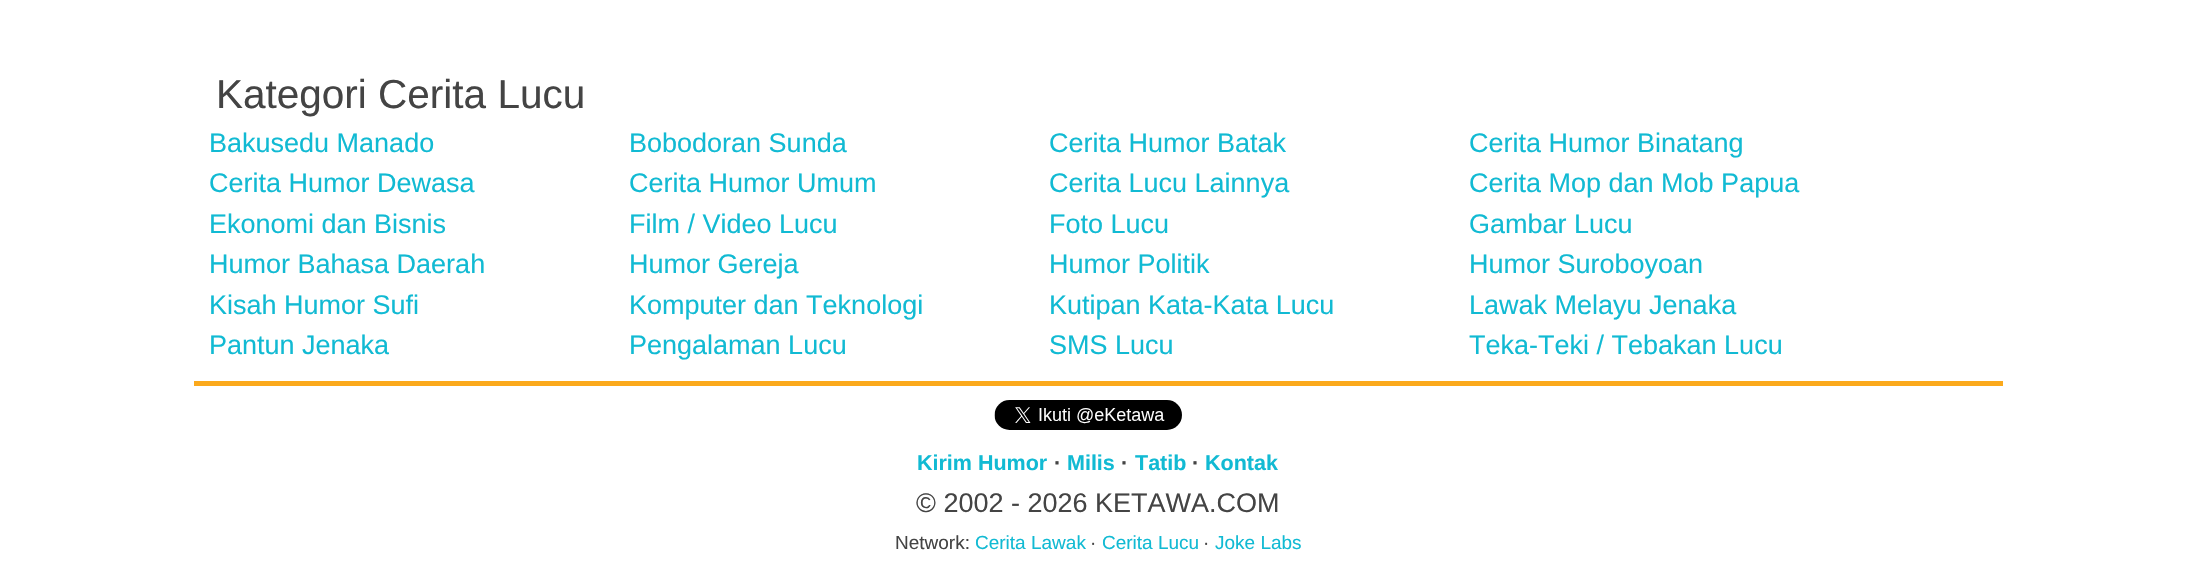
void draw(SkCanvas* canvas) {
  SkPaint paint;
  paint.setAntiAlias(true);
  auto face = [&](const char* family, int weight, float size, bool italic = false) {
    SkFontStyle style(weight, SkFontStyle::kNormal_Width,
      italic ? SkFontStyle::kItalic_Slant : SkFontStyle::kUpright_Slant);
    SkFont result(fontMgr->matchFamilyStyle(family, style), size);
    result.setSubpixel(true);
    return result;
  };
  auto paste = [&](const char* path, float x, float y, float w, float h) {
    auto image = SkImages::DeferredFromEncodedData(SkData::MakeFromFileName(path));
    canvas->drawImageRect(image, SkRect::MakeXYWH(x, y, w, h), SkSamplingOptions());
  };
  canvas->clear(0xffffffff);
  paint.setColor(0xfffba91c);
  canvas->drawRect(SkRect::MakeXYWH(194, 381, 1809, 5), paint);
  paste("img/1.png", 994, 400, 188, 30);
  auto f0 = face("Liberation Sans", 400, 40.5f);
  paint.setColor(0xff444444);
  canvas->drawString("Kategori Cerita Lucu", 216, 108, f0, paint);
  auto f1 = face("Liberation Sans", 400, 27);
  paint.setColor(0xff11bad3);
  {
    const struct { const char* s; float x, y; } items[] = {
      {"Bakusedu Manado", 209, 152},
      {"Bobodoran Sunda", 629, 152},
      {"Cerita Humor Batak", 1049, 152},
      {"Cerita Humor Binatang", 1469, 152},
      {"Cerita Humor Dewasa", 209, 192},
      {"Cerita Humor Umum", 629, 192},
      {"Cerita Lucu Lainnya", 1049, 192},
      {"Cerita Mop dan Mob Papua", 1469, 192},
      {"Ekonomi dan Bisnis", 209, 233},
      {"Film / Video Lucu", 629, 233},
      {"Foto Lucu", 1049, 233},
      {"Gambar Lucu", 1469, 233},
      {"Humor Bahasa Daerah", 209, 273},
      {"Humor Gereja", 629, 273},
      {"Humor Politik", 1049, 273},
      {"Humor Suroboyoan", 1469, 273},
      {"Kisah Humor Sufi", 209, 314},
      {"Komputer dan Teknologi", 629, 314},
      {"Kutipan Kata-Kata Lucu", 1049, 314},
      {"Lawak Melayu Jenaka", 1469, 314},
      {"Pantun Jenaka", 209, 354},
      {"Pengalaman Lucu", 629, 354},
      {"SMS Lucu", 1049, 354},
      {"Teka-Teki / Tebakan Lucu", 1469, 354},
    };
    for (auto [s, x, y] : items) {
      canvas->drawString(s, x, y, f1, paint);
    }
  }
  auto f2 = face("Liberation Sans", 700, 21.5f);
  canvas->drawString("Kirim Humor", 917, 470, f2, paint);
  paint.setColor(0xff444444);
  canvas->drawString("·", 1054, 470, f2, paint);
  paint.setColor(0xff11bad3);
  canvas->drawString("Milis", 1067, 470, f2, paint);
  paint.setColor(0xff444444);
  canvas->drawString("·", 1121, 470, f2, paint);
  paint.setColor(0xff11bad3);
  canvas->drawString("Tatib", 1135, 470, f2, paint);
  paint.setColor(0xff444444);
  canvas->drawString("·", 1192, 470, f2, paint);
  paint.setColor(0xff11bad3);
  canvas->drawString("Kontak", 1205, 470, f2, paint);
  paint.setColor(0xff444444);
  canvas->drawString("© 2002 - 2026 KETAWA.COM", 916, 512, f1, paint);
  auto f3 = face("Liberation Sans", 400, 19);
  canvas->drawString("Network:", 895, 549, f3, paint);
  paint.setColor(0xff11bad3);
  canvas->drawString("Cerita Lawak", 975, 549, f3, paint);
  paint.setColor(0xff444444);
  canvas->drawString("·", 1090, 549, f3, paint);
  paint.setColor(0xff11bad3);
  canvas->drawString("Cerita Lucu", 1102, 549, f3, paint);
  paint.setColor(0xff444444);
  canvas->drawString("·", 1203, 549, f3, paint);
  paint.setColor(0xff11bad3);
  canvas->drawString("Joke Labs", 1215, 549, f3, paint);
}
